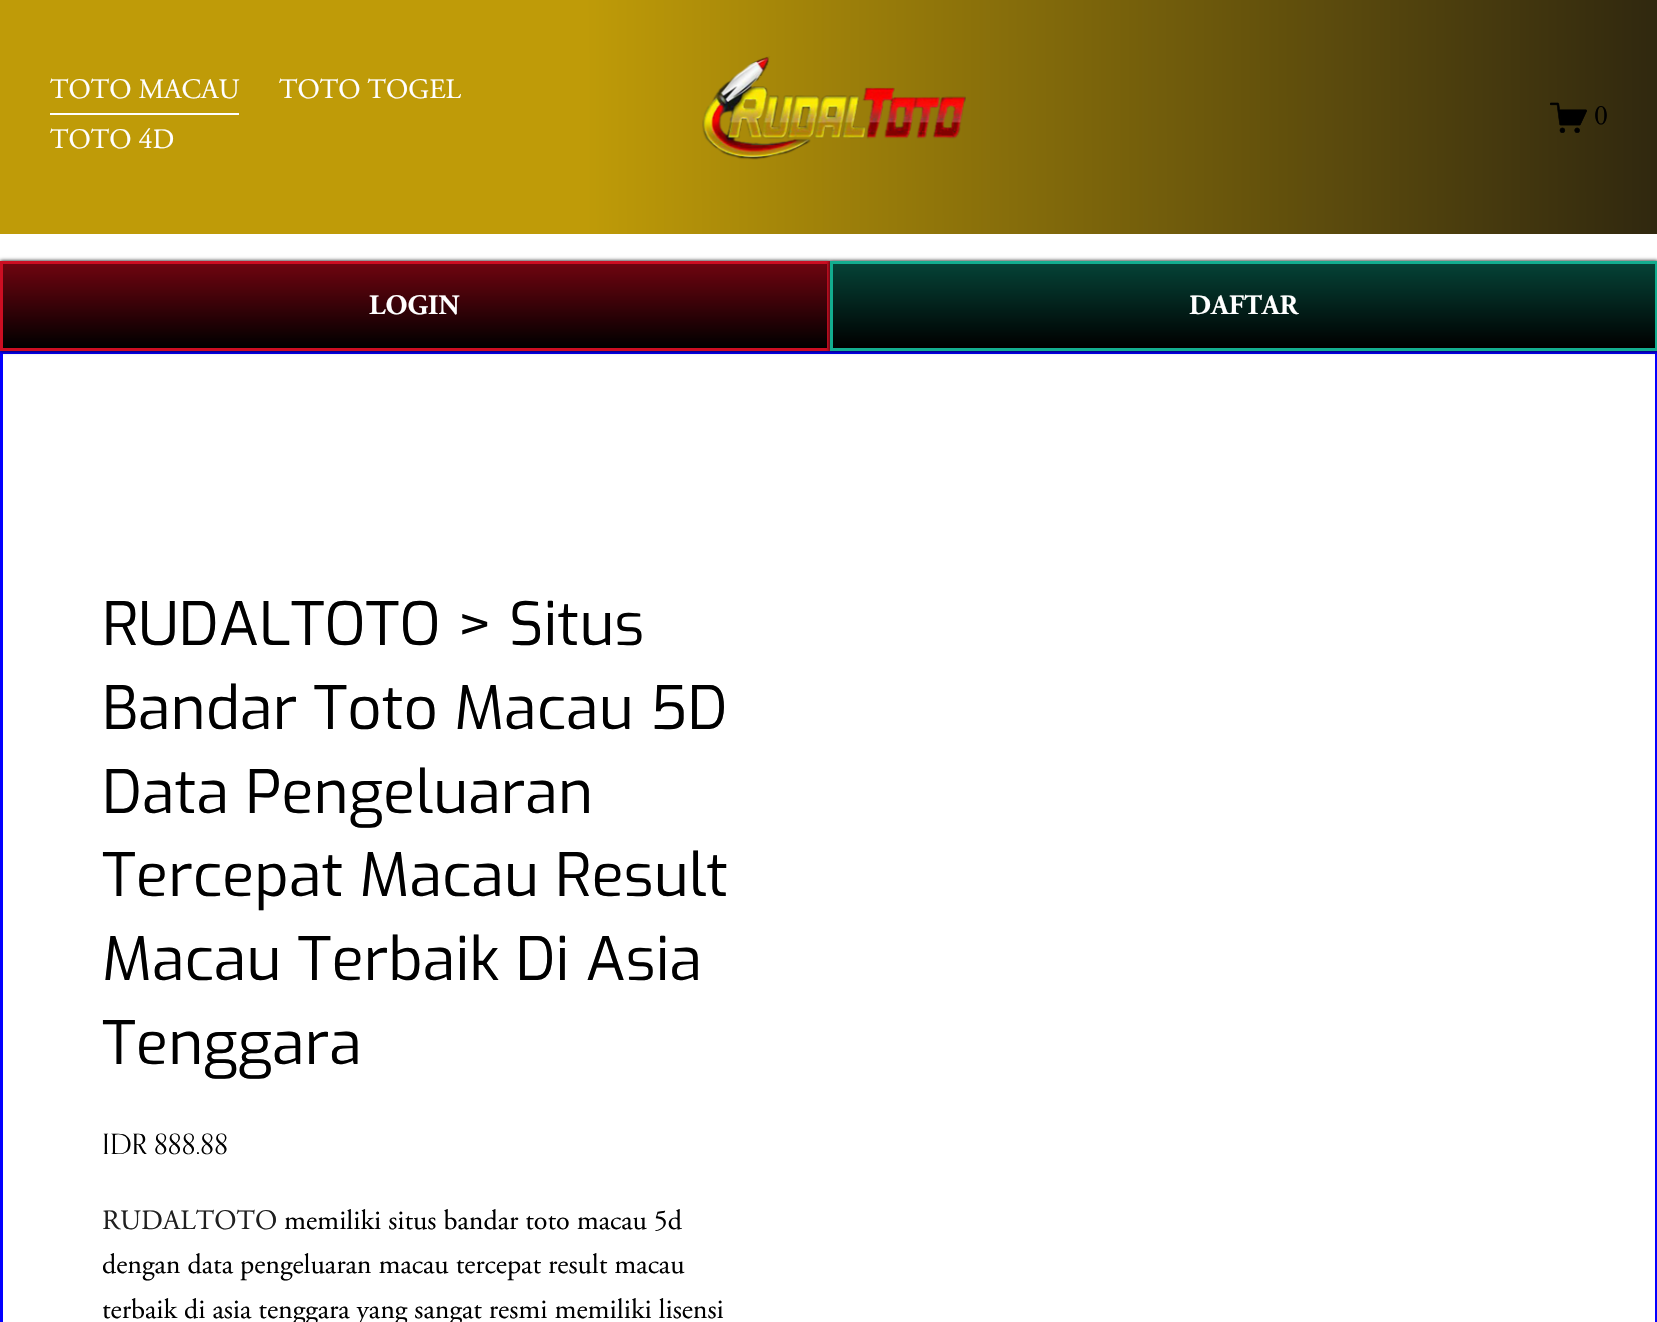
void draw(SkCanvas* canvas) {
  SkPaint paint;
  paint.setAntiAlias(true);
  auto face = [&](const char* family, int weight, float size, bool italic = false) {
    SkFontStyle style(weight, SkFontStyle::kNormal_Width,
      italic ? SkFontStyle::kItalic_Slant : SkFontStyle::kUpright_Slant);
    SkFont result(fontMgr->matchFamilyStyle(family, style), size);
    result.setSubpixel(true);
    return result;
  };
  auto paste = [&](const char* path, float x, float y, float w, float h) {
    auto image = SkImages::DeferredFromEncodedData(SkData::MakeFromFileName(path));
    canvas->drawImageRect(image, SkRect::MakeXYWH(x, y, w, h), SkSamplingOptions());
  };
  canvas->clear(0xffffffff);
  {
    const SkColor colors[] = {0xffbf9b08, 0xff000111};
    const float stops[] = {0.29f, 1};
    const SkPoint ends[] = {{-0.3f, 119}, {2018, 114}};
    paint.setShader(SkGradientShader::MakeLinear(ends, colors, stops, 2, SkTileMode::kClamp));
    paint.setAlpha(255);
  }
  canvas->drawRect(SkRect::MakeXYWH(0, 0, 1657, 234), paint);
  paint.setShader(nullptr);
  paint.setColor(0xffffffff);
  canvas->drawRect(SkRect::MakeXYWH(50, 113, 189, 2), paint);
  paste("img/1.png", 702, 56, 264, 104);
  paste("img/2.png", 1550, 102, 37, 31);
  paint.setStroke(true);
  paint.setStrokeWidth(3);
  paint.setColor(0xff0400ff);
  canvas->drawRect(SkRect::MakeXYWH(1.5f, 352.5f, 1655, 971), paint);
  paint.setStroke(false);
  paint.setColor(0xff000000);
  paint.setMaskFilter(SkMaskFilter::MakeBlur(kNormal_SkBlurStyle, 2));
  canvas->drawRect(SkRect::MakeXYWH(0, 261, 830, 90), paint);
  paint.setMaskFilter(nullptr);
  {
    const SkColor colors[] = {0xff6e040f, 0xff000000};
    const float stops[] = {0, 1};
    const SkPoint ends[] = {{415, 264}, {415, 348}};
    paint.setShader(SkGradientShader::MakeLinear(ends, colors, stops, 2, SkTileMode::kClamp));
    paint.setAlpha(255);
  }
  canvas->drawRect(SkRect::MakeXYWH(3, 264, 824, 84), paint);
  paint.setStroke(true);
  paint.setShader(nullptr);
  paint.setColor(0xffcc0e22);
  canvas->drawRect(SkRect::MakeXYWH(1.5f, 262.5f, 827, 87), paint);
  paint.setStroke(false);
  paint.setColor(0xff000000);
  paint.setMaskFilter(SkMaskFilter::MakeBlur(kNormal_SkBlurStyle, 2));
  canvas->drawRect(SkRect::MakeXYWH(830, 261, 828, 90), paint);
  paint.setMaskFilter(nullptr);
  {
    const SkColor colors[] = {0xff054236, 0xff000000};
    const float stops[] = {0, 1};
    const SkPoint ends[] = {{1244, 264}, {1244, 348}};
    paint.setShader(SkGradientShader::MakeLinear(ends, colors, stops, 2, SkTileMode::kClamp));
    paint.setAlpha(255);
  }
  canvas->drawRect(SkRect::MakeXYWH(833, 264, 822, 84), paint);
  paint.setStroke(true);
  paint.setShader(nullptr);
  paint.setColor(0xff13ad8f);
  canvas->drawRect(SkRect::MakeXYWH(831.5f, 262.5f, 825, 87), paint);
  auto f0 = face("Adobe Garamond", 400, 28);
  paint.setStroke(false);
  paint.setColor(0xffffffff);
  {
    const struct { const char* s; float x, y; } items[] = {
      {"TOTO MACAU", 50, 98},
      {"TOTO TOGEL", 279, 98},
      {"TOTO 4D", 50, 148},
    };
    for (auto [s, x, y] : items) {
      canvas->drawString(s, x, y, f0, paint);
    }
  }
  paint.setColor(0xff000000);
  canvas->drawString("0", 1594, 124, f0, paint);
  auto f1 = face("Adobe Garamond", 700, 28);
  paint.setColor(0xffffffff);
  canvas->drawString("LOGIN", 369, 314, f1, paint);
  canvas->drawString("DAFTAR", 1189, 314, f1, paint);
  auto f2 = face("Exo", 400, 59.75f);
  paint.setColor(0xff000000);
  {
    const struct { const char* s; float x, y; } items[] = {
      {"RUDALTOTO > Situs", 102, 645},
      {"Bandar Toto Macau 5D", 102, 729},
      {"Data Pengeluaran", 102, 813},
      {"Tercepat Macau Result", 102, 896},
      {"Macau Terbaik Di Asia", 102, 980},
      {"Tenggara", 102, 1064},
    };
    for (auto [s, x, y] : items) {
      canvas->drawString(s, x, y, f2, paint);
    }
  }
  auto f3 = face("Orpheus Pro", 400, 28);
  canvas->drawString("IDR 888.88", 102, 1154, f3, paint);
  paint.setColor(0xff1f1f1f);
  canvas->drawString("RUDALTOTO", 102, 1229, f0, paint);
  paint.setColor(0xff000000);
  {
    const struct { const char* s; float x, y; } items[] = {
      {"memiliki situs bandar toto macau 5d", 284, 1229},
      {"dengan data pengeluaran macau tercepat result macau", 102, 1273},
      {"terbaik di asia tenggara yang sangat resmi memiliki lisensi", 102, 1318},
    };
    for (auto [s, x, y] : items) {
      canvas->drawString(s, x, y, f0, paint);
    }
  }
}
